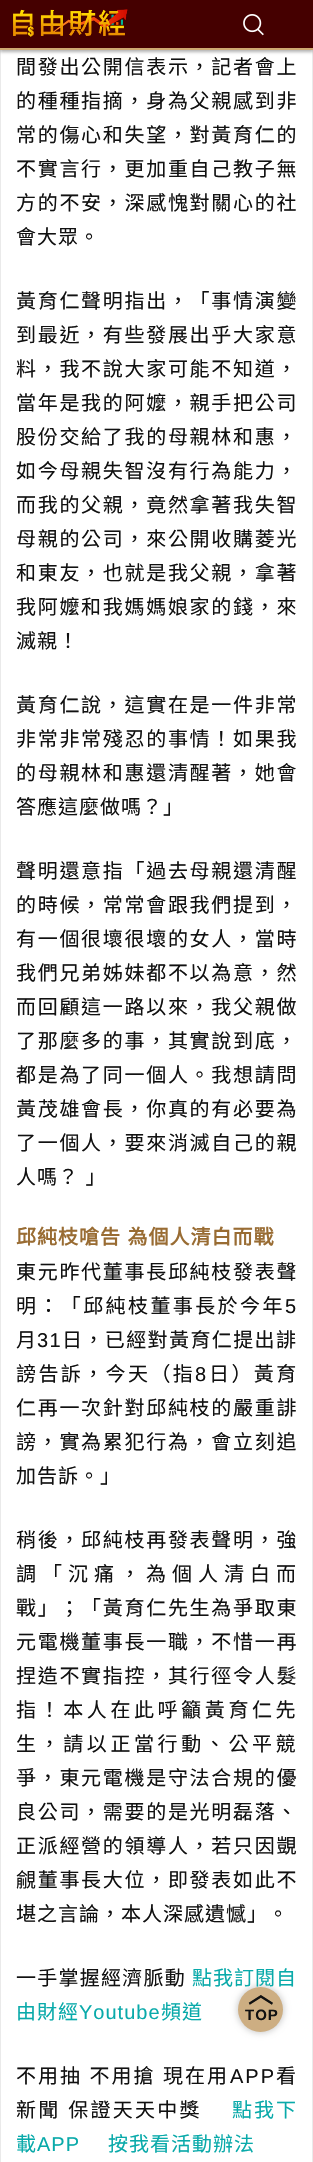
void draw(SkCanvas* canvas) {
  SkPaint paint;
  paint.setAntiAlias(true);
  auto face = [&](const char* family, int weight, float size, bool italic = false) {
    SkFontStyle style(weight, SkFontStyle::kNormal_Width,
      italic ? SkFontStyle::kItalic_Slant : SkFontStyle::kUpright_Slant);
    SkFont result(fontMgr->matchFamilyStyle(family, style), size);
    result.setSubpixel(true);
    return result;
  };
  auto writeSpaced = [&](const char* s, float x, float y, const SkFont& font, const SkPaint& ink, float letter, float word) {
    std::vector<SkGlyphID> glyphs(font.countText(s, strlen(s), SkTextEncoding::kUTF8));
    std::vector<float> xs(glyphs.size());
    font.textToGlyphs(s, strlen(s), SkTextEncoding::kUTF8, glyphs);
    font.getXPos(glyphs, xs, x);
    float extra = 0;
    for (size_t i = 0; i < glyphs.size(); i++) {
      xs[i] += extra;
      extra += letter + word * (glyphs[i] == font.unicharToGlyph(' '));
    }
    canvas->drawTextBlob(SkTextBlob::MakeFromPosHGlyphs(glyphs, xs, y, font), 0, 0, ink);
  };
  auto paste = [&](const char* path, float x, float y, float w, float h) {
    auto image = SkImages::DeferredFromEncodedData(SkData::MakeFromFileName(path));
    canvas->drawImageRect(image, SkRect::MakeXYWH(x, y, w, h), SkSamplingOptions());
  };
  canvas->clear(0xffffffff);
  paint.setStroke(true);
  paint.setStrokeWidth(1);
  paint.setColor(0xffeaeaea);
  canvas->drawRect(SkRect::MakeXYWH(0.5f, -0.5f, 312, 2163), paint);
  paint.setStroke(false);
  paint.setColor(0x4d000000);
  paint.setMaskFilter(SkMaskFilter::MakeBlur(kNormal_SkBlurStyle, 1.5f));
  canvas->drawRect(SkRect::MakeXYWH(0, 2, 313, 50), paint);
  paint.setMaskFilter(nullptr);
  paint.setColor(0xff450000);
  canvas->drawRect(SkRect::MakeXYWH(0, 0, 313, 48), paint);
  paint.setColor(0xffcfa972);
  canvas->drawRect(SkRect::MakeXYWH(0, 48, 313, 2), paint);
  paste("img/1.png", 13, 9, 115, 28);
  paste("img/2.png", 243, 14, 21, 22);
  paint.setColor(0x33000000);
  paint.setMaskFilter(SkMaskFilter::MakeBlur(kNormal_SkBlurStyle, 3));
  canvas->drawRoundRect(SkRect::MakeXYWH(237, 1986, 47, 47), 23.5f, 23.5f, paint);
  paint.setMaskFilter(nullptr);
  paint.setColor(0xffcdae82);
  canvas->drawCircle(260.5f, 2009.5f, 22.5f, paint);
  auto f0 = face("Noto Sans CJK TC", 400, 20);
  paint.setColor(0xff111111);
  {
    const struct { const char* s; float x, y; } items[] = {
      {"間發出公開信表示，記者會上", 16, 74},
      {"的種種指摘，身為父親感到非", 16, 108},
      {"常的傷心和失望，對黃育仁的", 16, 142},
      {"不實言行，更加重自己教子無", 16, 176},
      {"方的不安，深感愧對關心的社", 16, 210},
    };
    for (auto [s, x, y] : items) {
      writeSpaced(s, x, y, f0, paint, 1.7f, 0);
    }
  }
  writeSpaced("會大眾。", 16, 244, f0, paint, 1, 0);
  {
    const struct { const char* s; float x, y; } items[] = {
      {"黃育仁聲明指出，「事情演變", 16, 308},
      {"到最近，有些發展出乎大家意", 16, 342},
      {"料，我不說大家可能不知道，", 16, 376},
      {"當年是我的阿嬤，親手把公司", 16, 410},
      {"股份交給了我的母親林和惠，", 16, 444},
      {"如今母親失智沒有行為能力，", 16, 478},
      {"而我的父親，竟然拿著我失智", 16, 512},
      {"母親的公司，來公開收購菱光", 16, 546},
      {"和東友，也就是我父親，拿著", 16, 580},
      {"我阿嬤和我媽媽娘家的錢，來", 16, 614},
    };
    for (auto [s, x, y] : items) {
      writeSpaced(s, x, y, f0, paint, 1.7f, 0);
    }
  }
  writeSpaced("滅親！", 16, 648, f0, paint, 1, 0);
  {
    const struct { const char* s; float x, y; } items[] = {
      {"黃育仁說，這實在是一件非常", 16, 712},
      {"非常非常殘忍的事情！如果我", 16, 746},
      {"的母親林和惠還清醒著，她會", 16, 780},
    };
    for (auto [s, x, y] : items) {
      writeSpaced(s, x, y, f0, paint, 1.7f, 0);
    }
  }
  writeSpaced("答應這麼做嗎？」", 16, 814, f0, paint, 1, 0);
  {
    const struct { const char* s; float x, y; } items[] = {
      {"聲明還意指「過去母親還清醒", 16, 878},
      {"的時候，常常會跟我們提到，", 16, 912},
      {"有一個很壞很壞的女人，當時", 16, 946},
      {"我們兄弟姊妹都不以為意，然", 16, 980},
      {"而回顧這一路以來，我父親做", 16, 1014},
      {"了那麼多的事，其實說到底，", 16, 1048},
      {"都是為了同一個人。我想請問", 16, 1082},
      {"黃茂雄會長，你真的有必要為", 16, 1116},
      {"了一個人，要來消滅自己的親", 16, 1150},
    };
    for (auto [s, x, y] : items) {
      writeSpaced(s, x, y, f0, paint, 1.7f, 0);
    }
  }
  writeSpaced("人嗎？ 」", 16, 1184, f0, paint, 1, 1);
  auto f1 = face("Noto Sans CJK TC", 700, 20);
  paint.setColor(0xff996c33);
  writeSpaced("邱純枝嗆告 為個人清白而戰", 16, 1244, f1, paint, 1, 1);
  paint.setColor(0xff111111);
  writeSpaced("東元昨代董事長邱純枝發表聲", 16, 1279, f0, paint, 1.7f, 0);
  writeSpaced("明：「邱純枝董事長於今年", 16, 1313, f0, paint, 2.4f, 0);
  auto f2 = face("Liberation Sans", 400, 20);
  writeSpaced("5", 285, 1313, f2, paint, 2.4f, 0);
  writeSpaced("月", 16, 1347, f0, paint, 1.4f, 0);
  writeSpaced("31", 37, 1347, f2, paint, 1.4f, 0);
  writeSpaced("日，已經對黃育仁提出誹", 62, 1347, f0, paint, 1.4f, 0);
  writeSpaced("謗告訴，今天（指", 16, 1381, f0, paint, 2.4f, 0);
  writeSpaced("8", 195, 1381, f2, paint, 2.4f, 0);
  writeSpaced("日）黃育", 209, 1381, f0, paint, 2.4f, 0);
  writeSpaced("仁再一次針對邱純枝的嚴重誹", 16, 1415, f0, paint, 1.7f, 0);
  writeSpaced("謗，實為累犯行為，會立刻追", 16, 1449, f0, paint, 1.7f, 0);
  writeSpaced("加告訴。」", 16, 1483, f0, paint, 1, 0);
  writeSpaced("稍後，邱純枝再發表聲明，強", 16, 1547, f0, paint, 1.7f, 0);
  writeSpaced("調「沉痛，為個人清白而", 16, 1581, f0, paint, 6, 0);
  {
    const struct { const char* s; float x, y; } items[] = {
      {"戰」；「黃育仁先生為爭取東", 16, 1615},
      {"元電機董事長一職，不惜一再", 16, 1649},
      {"捏造不實指控，其行徑令人髮", 16, 1683},
    };
    for (auto [s, x, y] : items) {
      writeSpaced(s, x, y, f0, paint, 1.7f, 0);
    }
  }
  writeSpaced("指！本人在此呼籲黃育仁先", 16, 1717, f0, paint, 3.6f, 0);
  writeSpaced("生，請以正當行動、公平競", 16, 1751, f0, paint, 3.6f, 0);
  {
    const struct { const char* s; float x, y; } items[] = {
      {"爭，東元電機是守法合規的優", 16, 1785},
      {"良公司，需要的是光明磊落、", 16, 1819},
      {"正派經營的領導人，若只因覬", 16, 1853},
      {"覦董事長大位，即發表如此不", 16, 1887},
    };
    for (auto [s, x, y] : items) {
      writeSpaced(s, x, y, f0, paint, 1.7f, 0);
    }
  }
  writeSpaced("堪之言論，本人深感遺憾」。", 16, 1921, f0, paint, 1, 0);
  writeSpaced("一手掌握經濟脈動", 16, 1985, f0, paint, 1.25f, 0);
  paint.setColor(0xff09aaaa);
  writeSpaced("點我訂閱自", 192, 1985, f0, paint, 1, 0);
  writeSpaced("由財經", 16, 2019, f0, paint, 1, 0);
  writeSpaced("Youtube", 79, 2019, f2, paint, 1, 0);
  writeSpaced("頻道", 161, 2019, f0, paint, 1, 0);
  paint.setColor(0xff111111);
  writeSpaced("不用抽 不用搶 現在用", 16, 2083, f0, paint, 2, 1);
  writeSpaced("APP", 230, 2083, f2, paint, 2, 0);
  writeSpaced("看", 276, 2083, f0, paint, 2, 0);
  writeSpaced("新聞 保證天天中獎", 16, 2117, f0, paint, 2.25f, 1);
  paint.setColor(0xff09aaaa);
  writeSpaced("點我下", 232, 2117, f0, paint, 2, 0);
  writeSpaced("載", 16, 2151, f0, paint, 1, 0);
  writeSpaced("APP", 37, 2151, f2, paint, 1, 0);
  writeSpaced("按我看活動辦法", 108, 2151, f0, paint, 1, 0);
  auto f3 = face("Noto Sans CJK TC", 700, 25);
  paint.setColor(0xff111111);
  canvas->drawString("︿", 248, 2003, f3, paint);
  auto f4 = face("Liberation Sans", 700, 15);
  writeSpaced("TOP", 245, 2020, f4, paint, 1, 0);
}
